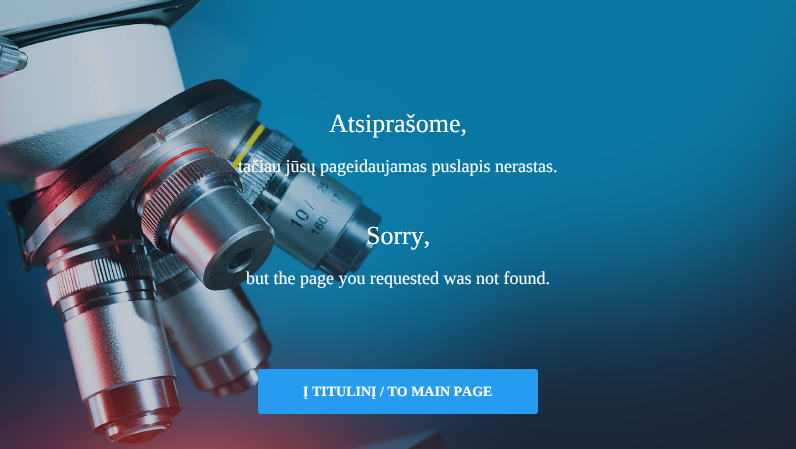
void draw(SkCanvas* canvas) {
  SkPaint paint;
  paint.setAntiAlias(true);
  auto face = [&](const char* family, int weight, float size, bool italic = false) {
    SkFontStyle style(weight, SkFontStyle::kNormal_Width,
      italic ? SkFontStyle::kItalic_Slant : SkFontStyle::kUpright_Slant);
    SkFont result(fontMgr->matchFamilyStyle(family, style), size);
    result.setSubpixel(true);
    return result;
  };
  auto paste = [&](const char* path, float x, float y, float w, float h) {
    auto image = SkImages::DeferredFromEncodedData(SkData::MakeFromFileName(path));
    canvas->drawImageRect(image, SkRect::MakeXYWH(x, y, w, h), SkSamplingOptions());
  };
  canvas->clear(0xffffffff);
  paste("img/1.png", 0, 0, 796, 449);
  paint.setColor(0xff269bf0);
  canvas->drawRoundRect(SkRect::MakeXYWH(258, 369, 280, 45), 3, 3, paint);
  auto f0 = face("Liberation Serif", 400, 26);
  paint.setColor(0xffffffff);
  canvas->drawString("Atsiprašome,", 329, 132, f0, paint);
  auto f1 = face("Liberation Serif", 400, 18);
  canvas->drawString("tačiau jūsų pageidaujamas puslapis nerastas.", 238, 172, f1, paint);
  canvas->drawString("Sorry,", 366, 244, f0, paint);
  canvas->drawString("but the page you requested was not found.", 246, 284, f1, paint);
  auto f2 = face("Liberation Serif", 700, 14);
  canvas->drawString("Į TITULINĮ / TO MAIN PAGE", 303, 396, f2, paint);
}
